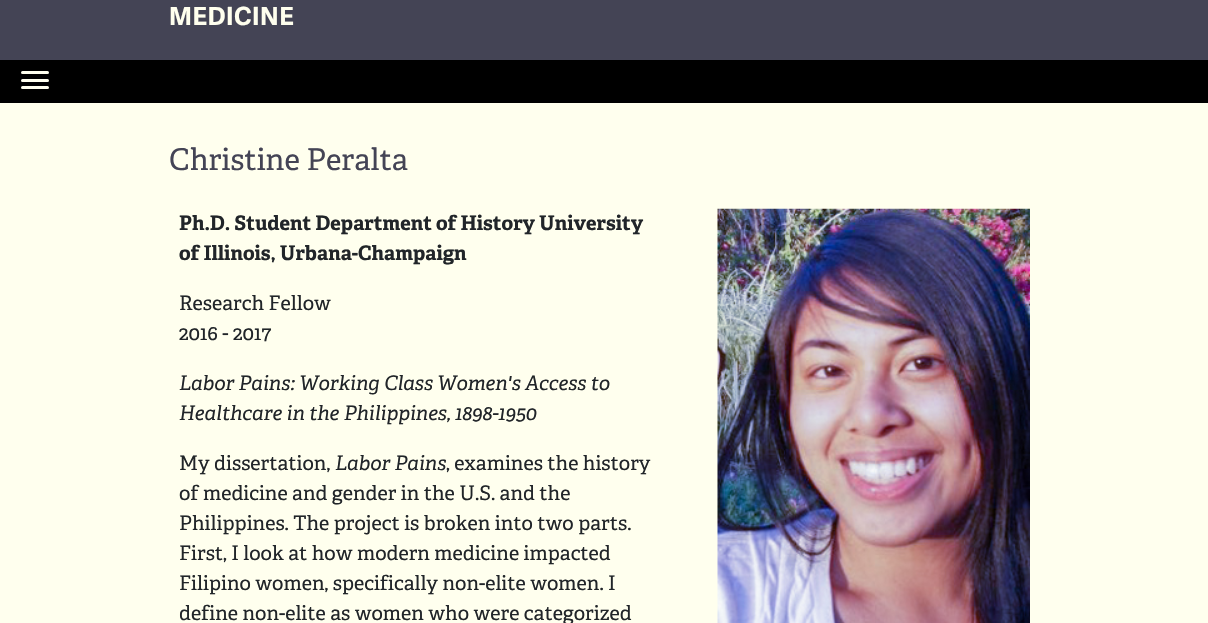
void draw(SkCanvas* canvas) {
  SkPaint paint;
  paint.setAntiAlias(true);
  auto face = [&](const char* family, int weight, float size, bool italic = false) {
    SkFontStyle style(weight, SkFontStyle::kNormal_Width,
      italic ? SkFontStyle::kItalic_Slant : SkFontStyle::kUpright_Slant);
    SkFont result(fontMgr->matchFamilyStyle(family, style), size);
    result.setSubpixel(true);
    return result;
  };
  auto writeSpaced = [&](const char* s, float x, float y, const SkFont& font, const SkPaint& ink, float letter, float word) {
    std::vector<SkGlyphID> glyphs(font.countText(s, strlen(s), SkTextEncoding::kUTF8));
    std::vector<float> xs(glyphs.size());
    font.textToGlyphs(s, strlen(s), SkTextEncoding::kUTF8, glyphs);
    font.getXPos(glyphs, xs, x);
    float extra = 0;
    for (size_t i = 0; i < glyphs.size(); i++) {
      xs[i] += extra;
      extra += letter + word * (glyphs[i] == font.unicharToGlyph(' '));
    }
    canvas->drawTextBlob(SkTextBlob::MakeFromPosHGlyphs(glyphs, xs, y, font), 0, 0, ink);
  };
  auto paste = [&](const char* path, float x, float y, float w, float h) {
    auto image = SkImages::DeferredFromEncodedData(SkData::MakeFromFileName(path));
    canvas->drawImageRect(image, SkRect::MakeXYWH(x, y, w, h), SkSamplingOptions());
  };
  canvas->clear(0xffffffee);
  paint.setColor(0xff000000);
  canvas->drawRect(SkRect::MakeXYWH(0, 60, 1208, 43), paint);
  paint.setColor(0xff444455);
  canvas->drawRect(SkRect::MakeXYWH(0, 0, 1208, 60), paint);
  paint.setColor(0xffffffee);
  canvas->drawRoundRect(SkRect::MakeXYWH(21, 71, 28, 3), 1.5f, 1.5f, paint);
  canvas->drawRoundRect(SkRect::MakeXYWH(21, 79, 28, 3), 1.5f, 1.5f, paint);
  canvas->drawRoundRect(SkRect::MakeXYWH(21, 86, 28, 3), 1.5f, 1.5f, paint);
  paste("img/1.png", 717, 208, 313, 415);
  auto f0 = face("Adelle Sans", 700, 25);
  writeSpaced("MEDICINE", 169, 25, f0, paint, 0.5f, 0);
  auto f1 = face("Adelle", 400, 30);
  paint.setColor(0xff444455);
  canvas->drawString("Christine Peralta", 169, 170, f1, paint);
  auto f2 = face("Adelle", 700, 20);
  paint.setColor(0xff212529);
  canvas->drawString("Ph.D. Student Department of History University", 179, 230, f2, paint);
  canvas->drawString("of Illinois, Urbana-Champaign", 179, 260, f2, paint);
  auto f3 = face("Adelle", 400, 20);
  canvas->drawString("Research Fellow", 179, 310, f3, paint);
  canvas->drawString("2016 - 2017", 179, 340, f3, paint);
  auto f4 = face("Adelle", 400, 20, true);
  canvas->drawString("Labor Pains: Working Class Women's Access to", 179, 390, f4, paint);
  canvas->drawString("Healthcare in the Philippines, 1898-1950", 179, 420, f4, paint);
  canvas->drawString("My dissertation,", 179, 470, f3, paint);
  canvas->drawString("Labor Pains", 335, 470, f4, paint);
  {
    const struct { const char* s; float x, y; } items[] = {
      {", examines the history", 446, 470},
      {"of medicine and gender in the U.S. and the", 179, 500},
      {"Philippines. The project is broken into two parts.", 179, 530},
      {"First, I look at how modern medicine impacted", 179, 560},
      {"Filipino women, specifically non-elite women. I", 179, 590},
      {"define non-elite as women who were categorized", 179, 620},
    };
    for (auto [s, x, y] : items) {
      canvas->drawString(s, x, y, f3, paint);
    }
  }
}
